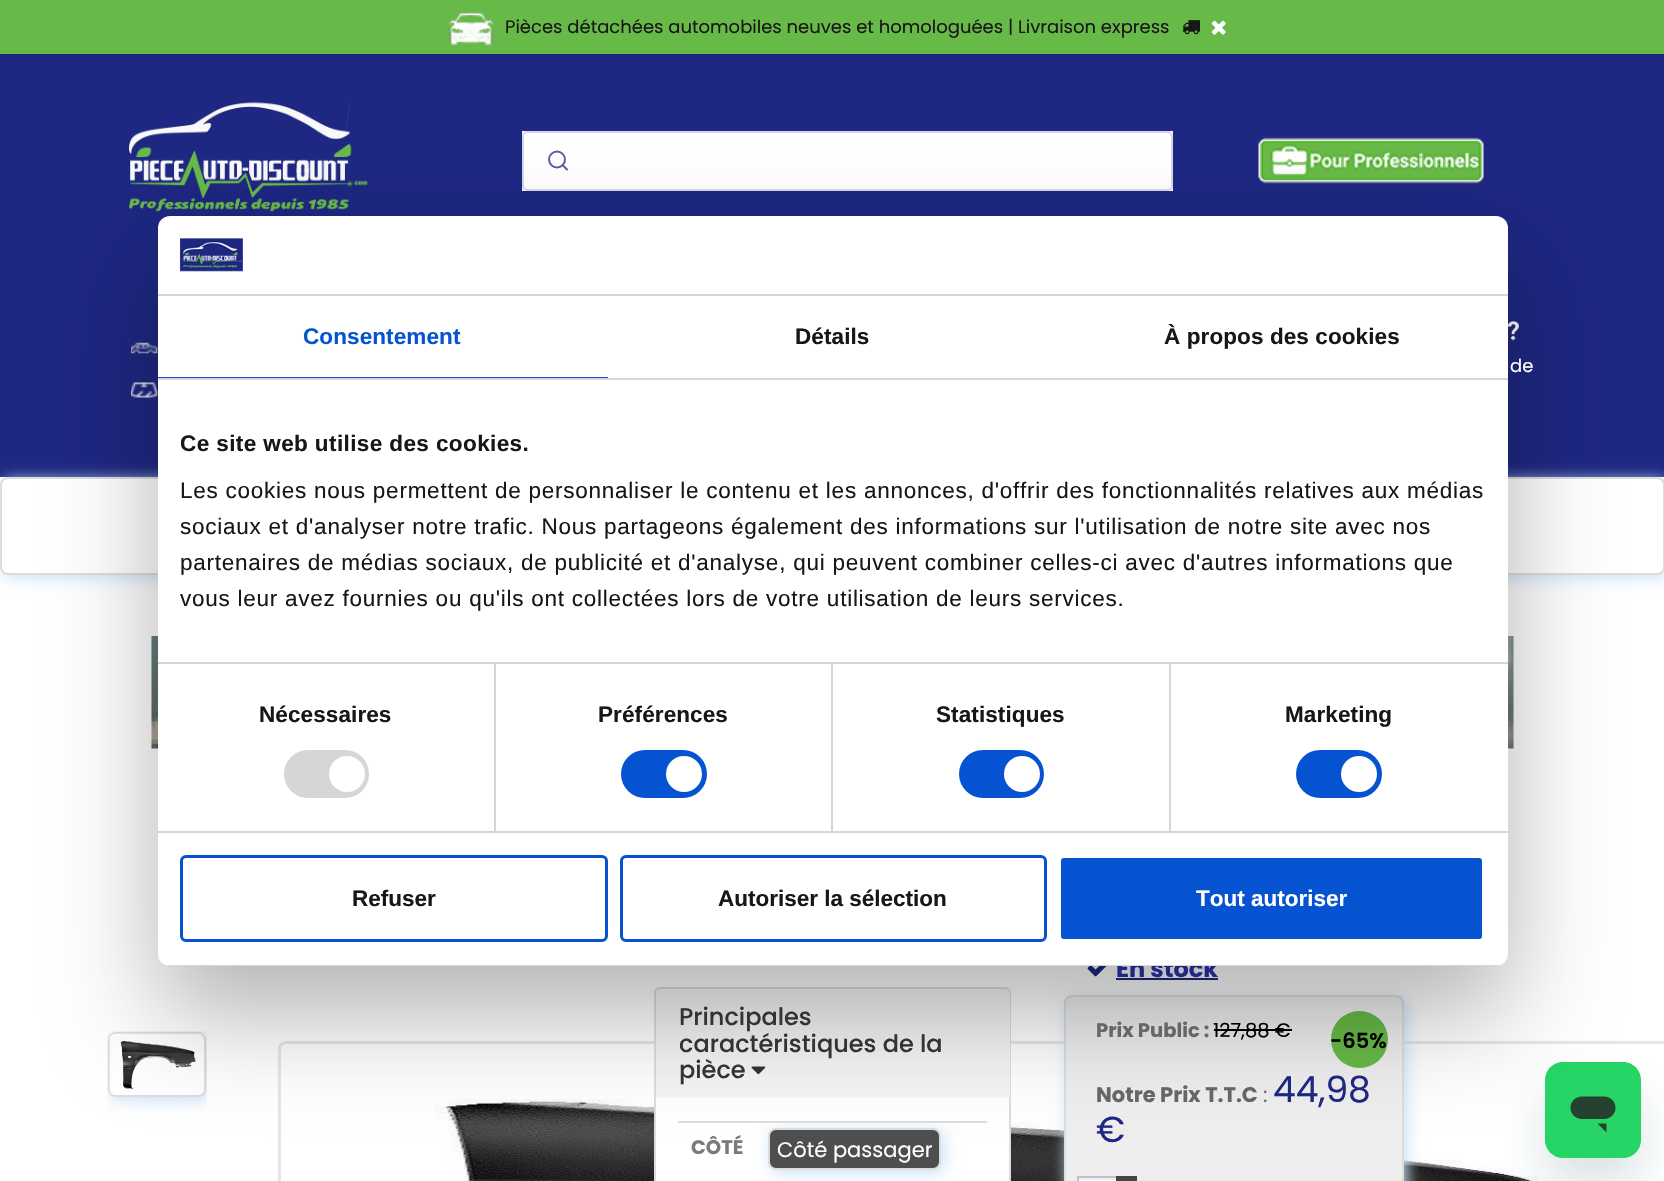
void draw(SkCanvas* canvas) {
  SkPaint paint;
  paint.setAntiAlias(true);
  auto face = [&](const char* family, int weight, float size, bool italic = false) {
    SkFontStyle style(weight, SkFontStyle::kNormal_Width,
      italic ? SkFontStyle::kItalic_Slant : SkFontStyle::kUpright_Slant);
    SkFont result(fontMgr->matchFamilyStyle(family, style), size);
    result.setSubpixel(true);
    return result;
  };
  auto writeSpaced = [&](const char* s, float x, float y, const SkFont& font, const SkPaint& ink, float letter, float word) {
    std::vector<SkGlyphID> glyphs(font.countText(s, strlen(s), SkTextEncoding::kUTF8));
    std::vector<float> xs(glyphs.size());
    font.textToGlyphs(s, strlen(s), SkTextEncoding::kUTF8, glyphs);
    font.getXPos(glyphs, xs, x);
    float extra = 0;
    for (size_t i = 0; i < glyphs.size(); i++) {
      xs[i] += extra;
      extra += letter + word * (glyphs[i] == font.unicharToGlyph(' '));
    }
    canvas->drawTextBlob(SkTextBlob::MakeFromPosHGlyphs(glyphs, xs, y, font), 0, 0, ink);
  };
  auto paste = [&](const char* path, float x, float y, float w, float h) {
    auto image = SkImages::DeferredFromEncodedData(SkData::MakeFromFileName(path));
    canvas->drawImageRect(image, SkRect::MakeXYWH(x, y, w, h), SkSamplingOptions());
  };
  auto shape = [&](const char* data, bool evenOdd = false) {
    SkPath result = *SkParsePath::FromSVGString(data);
    if (evenOdd) result.setFillType(SkPathFillType::kEvenOdd);
    return result;
  };
  canvas->clear(0xffffffff);
  paint.setColor(0xff1e2782);
  canvas->drawRect(SkRect::MakeXYWH(0, 54, 1664, 423), paint);
  paint.setColor(0xff68ba48);
  canvas->drawRect(SkRect::MakeXYWH(0, 0, 1664, 54), paint);
  paste("img/1.png", 448, 11, 46, 35);
  paste("img/2.png", 1182, 20, 18, 15);
  paste("img/3.png", 1211, 20, 15, 15);
  paste("img/4.png", 129, 102, 239, 110);
  paint.setColor(0xffffffff);
  canvas->drawRect(SkRect::MakeXYWH(522, 131, 651, 60), paint);
  paint.setStroke(true);
  paint.setStrokeWidth(2);
  paint.setColor(0xffd6d6e7);
  canvas->drawRoundRect(SkRect::MakeXYWH(523, 132, 649, 58), 4, 4, paint);
  paint.setColor(0xff5a5e9a);
  canvas->drawCircle(557, 159.5f, 8, paint);
  paint.setStrokeCap(SkPaint::kRound_Cap);
  paint.setStrokeJoin(SkPaint::kRound_Join);
  canvas->drawPath(shape("M567 169.5L562.5 165"), paint);
  paste("img/5.png", 1258, 137, 226, 47);
  paste("img/6.png", 131, 342, 27, 12);
  paste("img/7.png", 131, 382, 27, 16);
  paste("img/8.png", 1508, 321, 11, 20);
  paint.setStroke(false);
  paint.setColor(0xffcae2f9);
  paint.setMaskFilter(SkMaskFilter::MakeBlur(kNormal_SkBlurStyle, 7.5f));
  canvas->drawRoundRect(SkRect::MakeXYWH(3, 480, 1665, 98), 8, 8, paint);
  paint.setMaskFilter(nullptr);
  paint.setColor(0xffffffff);
  canvas->drawRoundRect(SkRect::MakeXYWH(1, 478, 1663, 96), 7, 7, paint);
  paint.setStroke(true);
  paint.setStrokeCap(SkPaint::kButt_Cap);
  paint.setStrokeJoin(SkPaint::kMiter_Join);
  paint.setColor(0xffdddddd);
  canvas->drawRoundRect(SkRect::MakeXYWH(1, 478, 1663, 96), 7, 7, paint);
  paste("img/10.png", 151, 636, 1363, 113);
  paste("img/11.png", 1087, 966, 20, 11);
  paint.setStroke(false);
  paint.setColor(0xff1e2782);
  canvas->drawRect(SkRect::MakeXYWH(1116, 978, 102, 2), paint);
  canvas->save();
  canvas->clipRect(SkRect::MakeXYWH(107, 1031, 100, 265));
  paint.setColor(0xffcae2f9);
  paint.setMaskFilter(SkMaskFilter::MakeBlur(kNormal_SkBlurStyle, 7.5f));
  canvas->drawRoundRect(SkRect::MakeXYWH(111, 1035, 98, 65), 8, 8, paint);
  paint.setMaskFilter(nullptr);
  canvas->restore();
  paint.setStroke(true);
  paint.setColor(0xffdddddd);
  canvas->drawRoundRect(SkRect::MakeXYWH(109, 1033, 96, 63), 7, 7, paint);
  paste("img/12.png", 109, 1033, 95, 62);
  paint.setStrokeWidth(3);
  paint.setColor(0xffe6e6e6);
  canvas->drawRoundRect(SkRect::MakeXYWH(279.5f, 1042.5f, 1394, 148), 6.5f, 6.5f, paint);
  paste("img/14.png", 434, 1099, 1105, 82);
  paint.setStroke(false);
  paint.setColor(0xffffffff);
  canvas->drawRoundRect(SkRect::MakeXYWH(655, 988, 355, 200), 5, 5, paint);
  paint.setStroke(true);
  paint.setStrokeWidth(2);
  paint.setColor(0xffdddddd);
  canvas->drawRoundRect(SkRect::MakeXYWH(655, 988, 355, 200), 5, 5, paint);
  paint.setStroke(false);
  paint.setColor(0xfff5f5f5);
  canvas->drawPath(shape("M661 989H1005C1008 989 1010 991 1010 994V1098H656V994C656 991 658 989 661 989Z"), paint);
  paste("img/13.png", 751, 1066, 15, 9);
  paint.setColor(0xffdddddd);
  canvas->drawRect(SkRect::MakeXYWH(678, 1121, 309, 2), paint);
  canvas->save();
  canvas->clipRect(SkRect::MakeXYWH(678, 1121, 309, 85));
  paint.setColor(0xffcae2f9);
  paint.setMaskFilter(SkMaskFilter::MakeBlur(kNormal_SkBlurStyle, 7.5f));
  canvas->drawRoundRect(SkRect::MakeXYWH(771, 1131, 173, 42), 8, 8, paint);
  paint.setMaskFilter(nullptr);
  canvas->restore();
  paint.setColor(0xff4e4e4e);
  canvas->drawRoundRect(SkRect::MakeXYWH(769, 1129, 171, 40), 7, 7, paint);
  paint.setStroke(true);
  paint.setColor(0xffdddddd);
  canvas->drawRoundRect(SkRect::MakeXYWH(769, 1129, 171, 40), 7, 7, paint);
  paint.setStroke(false);
  paint.setColor(0xffcae2f9);
  paint.setMaskFilter(SkMaskFilter::MakeBlur(kNormal_SkBlurStyle, 7.5f));
  canvas->drawRoundRect(SkRect::MakeXYWH(1067, 998, 340, 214), 8, 8, paint);
  paint.setMaskFilter(nullptr);
  paint.setColor(0xffeeeeee);
  canvas->drawRoundRect(SkRect::MakeXYWH(1065, 996, 338, 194), 7, 7, paint);
  paint.setStroke(true);
  paint.setColor(0xffdddddd);
  canvas->drawRoundRect(SkRect::MakeXYWH(1065, 996, 338, 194), 7, 7, paint);
  paint.setStroke(false);
  paint.setColor(0xff000000);
  canvas->drawRect(SkRect::MakeXYWH(1214, 1029, 78, 2), paint);
  paint.setColor(0xff68ba48);
  canvas->drawCircle(1359.5f, 1039.5f, 28.5f, paint);
  paint.setColor(0x2617494d);
  paint.setMaskFilter(SkMaskFilter::MakeBlur(kNormal_SkBlurStyle, 22.5f));
  canvas->drawRoundRect(SkRect::MakeXYWH(1545, 1092, 96, 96), 18, 18, paint);
  paint.setMaskFilter(nullptr);
  paste("img/15.png", 1545, 1062, 96, 96);
  paint.setColor(0x4d000000);
  paint.setMaskFilter(SkMaskFilter::MakeBlur(kNormal_SkBlurStyle, 51));
  canvas->drawRoundRect(SkRect::MakeXYWH(158, 264, 1350, 750), 12, 12, paint);
  paint.setMaskFilter(nullptr);
  paint.setColor(0xffffffff);
  canvas->drawRect(SkRect::MakeXYWH(1077, 1180, 39, 1), paint);
  paint.setStroke(true);
  paint.setColor(0xffbdc2c9);
  canvas->drawRect(SkRect::MakeXYWH(1078, 1177, 51, 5), paint);
  paint.setStroke(false);
  paint.setColor(0xff444444);
  canvas->drawRect(SkRect::MakeXYWH(1116, 1176, 21, 5), paint);
  auto f0 = face("Poppins", 400, 18);
  paint.setColor(0xff171717);
  canvas->drawString("Pièces détachées automobiles neuves et homologuées | Livraison express", 505, 33, f0, paint);
  paint.setColor(0xffffffff);
  canvas->drawString("de", 1510, 372, f0, paint);
  auto f1 = face("Poppins", 700, 24);
  paint.setColor(0xff1e2782);
  canvas->drawString("En stock", 1116, 977, f1, paint);
  paint.setColor(0xffffffff);
  canvas->drawRoundRect(SkRect::MakeXYWH(158, 216, 1350, 750), 12, 12, paint);
  paint.setColor(0xff0553d1);
  canvas->drawRoundRect(SkRect::MakeXYWH(1059.5f, 856.5f, 424, 84), 4.5f, 4.5f, paint);
  paint.setStroke(true);
  paint.setStrokeWidth(3);
  paint.setColor(0xffffffff);
  canvas->drawRoundRect(SkRect::MakeXYWH(1059.5f, 856.5f, 424, 84), 4.5f, 4.5f, paint);
  auto f2 = face("Liberation Sans", 700, 22.5f);
  paint.setStroke(false);
  canvas->drawString("Tout autoriser", 1196, 906, f2, paint);
  paint.setStroke(true);
  paint.setColor(0xff0553d1);
  canvas->drawRoundRect(SkRect::MakeXYWH(621.5f, 856.5f, 424, 84), 4.5f, 4.5f, paint);
  paint.setStroke(false);
  paint.setColor(0xff171717);
  canvas->drawString("Autoriser la sélection", 718, 906, f2, paint);
  paint.setStroke(true);
  paint.setColor(0xff0553d1);
  canvas->drawRoundRect(SkRect::MakeXYWH(181.5f, 856.5f, 425, 84), 4.5f, 4.5f, paint);
  paint.setStroke(false);
  paint.setColor(0xff171717);
  canvas->drawString("Refuser", 352, 906, f2, paint);
  canvas->save();
  canvas->clipPath(shape("M170 216H1496C1502.5 216 1508 221.5 1508 228V954C1508 960.5 1502.5 966 1496 966H170C163.5 966 158 960.5 158 954V228C158 221.5 163.5 216 170 216Z"), true);
  paint.setColor(0xffd6d6d6);
  canvas->drawRect(SkRect::MakeXYWH(158, 965, 1350, 1), paint);
  canvas->restore();
  paint.setColor(0xff0553d1);
  canvas->drawRoundRect(SkRect::MakeXYWH(1296, 750, 86, 48), 24, 24, paint);
  paint.setColor(0xffffffff);
  canvas->drawCircle(1359, 774, 18, paint);
  paint.setColor(0xff0553d1);
  canvas->drawRoundRect(SkRect::MakeXYWH(959, 750, 85, 48), 24, 24, paint);
  paint.setColor(0xffffffff);
  canvas->drawCircle(1022, 774, 18, paint);
  paint.setColor(0xff0553d1);
  canvas->drawRoundRect(SkRect::MakeXYWH(621, 750, 86, 48), 24, 24, paint);
  paint.setColor(0xffffffff);
  canvas->drawCircle(684, 774, 18, paint);
  paint.setColor(0xffd6d6d6);
  canvas->drawRoundRect(SkRect::MakeXYWH(284, 750, 85, 48), 24, 24, paint);
  paint.setColor(0xffffffff);
  canvas->drawCircle(347, 774, 18, paint);
  auto f3 = face("Liberation Sans", 400, 22.5f);
  paint.setColor(0xff171717);
  {
    const struct { const char* s; float x, y; } items[] = {
      {"vous leur avez fournies ou qu'ils ont collectées lors de votre utilisation de leurs services.", 180, 606},
      {"partenaires de médias sociaux, de publicité et d'analyse, qui peuvent combiner celles-ci avec d'autres informations que", 180, 570},
      {"sociaux et d'analyser notre trafic. Nous partageons également des informations sur l'utilisation de notre site avec nos", 180, 534},
      {"Les cookies nous permettent de personnaliser le contenu et les annonces, d'offrir des fonctionnalités relatives aux médias", 180, 498},
    };
    for (auto [s, x, y] : items) {
      writeSpaced(s, x, y, f3, paint, 0.75f, 0);
    }
  }
  writeSpaced("Ce site web utilise des cookies.", 180, 451, f2, paint, 0.4f, 0);
  {
    const struct { float x, y, w, h; SkColor color; } items[] = {
      {1169, 663, 2, 168, 0xffd6d6d6},
      {831, 663, 2, 168, 0xffd6d6d6},
      {494, 663, 2, 168, 0xffd6d6d6},
      {158, 662, 1350, 2, 0xffd6d6d6},
    };
    for (auto [x, y, w, h, color] : items) {
      paint.setColor(color);
      canvas->drawRect(SkRect::MakeXYWH(x, y, w, h), paint);
    }
  }
  paint.setColor(0xff171717);
  writeSpaced("À propos des cookies", 1164, 344, f2, paint, 0.1f, 0);
  writeSpaced("Détails", 795, 344, f2, paint, 0.1f, 0);
  paint.setColor(0xff0553d1);
  writeSpaced("Consentement", 303, 344, f2, paint, 0.1f, 0);
  canvas->drawRect(SkRect::MakeXYWH(158, 377, 450, 1), paint);
  paint.setColor(0xffd6d6d6);
  canvas->drawRect(SkRect::MakeXYWH(158, 378, 1350, 2), paint);
  paint.setColor(0xff171717);
  {
    const struct { const char* s; float x, y; } items[] = {
      {"Marketing", 1285, 722},
      {"Statistiques", 936, 722},
      {"Préférences", 598, 722},
      {"Nécessaires", 259, 722},
    };
    for (auto [s, x, y] : items) {
      writeSpaced(s, x, y, f2, paint, 0.1f, 0);
    }
  }
  paint.setColor(0xffd6d6d6);
  canvas->drawRect(SkRect::MakeXYWH(158, 831, 1350, 2), paint);
  paste("img/9.png", 180, 238, 63, 34);
  canvas->drawRect(SkRect::MakeXYWH(158, 294, 1350, 2), paint);
  auto f4 = face("Poppins", 500, 24);
  paint.setColor(0xff333333);
  {
    const struct { const char* s; float x, y; } items[] = {
      {"Principales", 679, 1025},
      {"caractéristiques de la", 679, 1052},
      {"pièce", 679, 1078},
    };
    for (auto [s, x, y] : items) {
      canvas->drawString(s, x, y, f4, paint);
    }
  }
  auto f5 = face("Poppins", 700, 19.5f);
  paint.setColor(0xff7a7a7a);
  canvas->drawString("CÔTÉ", 691, 1154, f5, paint);
  auto f6 = face("Poppins", 400, 21);
  paint.setColor(0xffffffff);
  canvas->drawString("Côté passager", 777, 1157, f6, paint);
  paint.setColor(0xff666666);
  canvas->drawString("Prix Public :", 1096, 1037, f5, paint);
  auto f7 = face("Poppins", 400, 19.5f);
  paint.setColor(0xff000000);
  canvas->drawString("127,88 €", 1213, 1037, f7, paint);
  auto f8 = face("Poppins", 600, 21);
  canvas->drawString("-65%", 1330, 1048, f8, paint);
  auto f9 = face("Poppins", 700, 21);
  paint.setColor(0xff666666);
  canvas->drawString("Notre Prix T.T.C", 1096, 1102, f9, paint);
  canvas->drawString(":", 1263, 1102, f6, paint);
  auto f10 = face("Poppins", 400, 36);
  paint.setColor(0xff1e2782);
  canvas->drawString("44,98", 1273, 1102, f10, paint);
  canvas->drawString("€", 1096, 1142, f10, paint);
}
